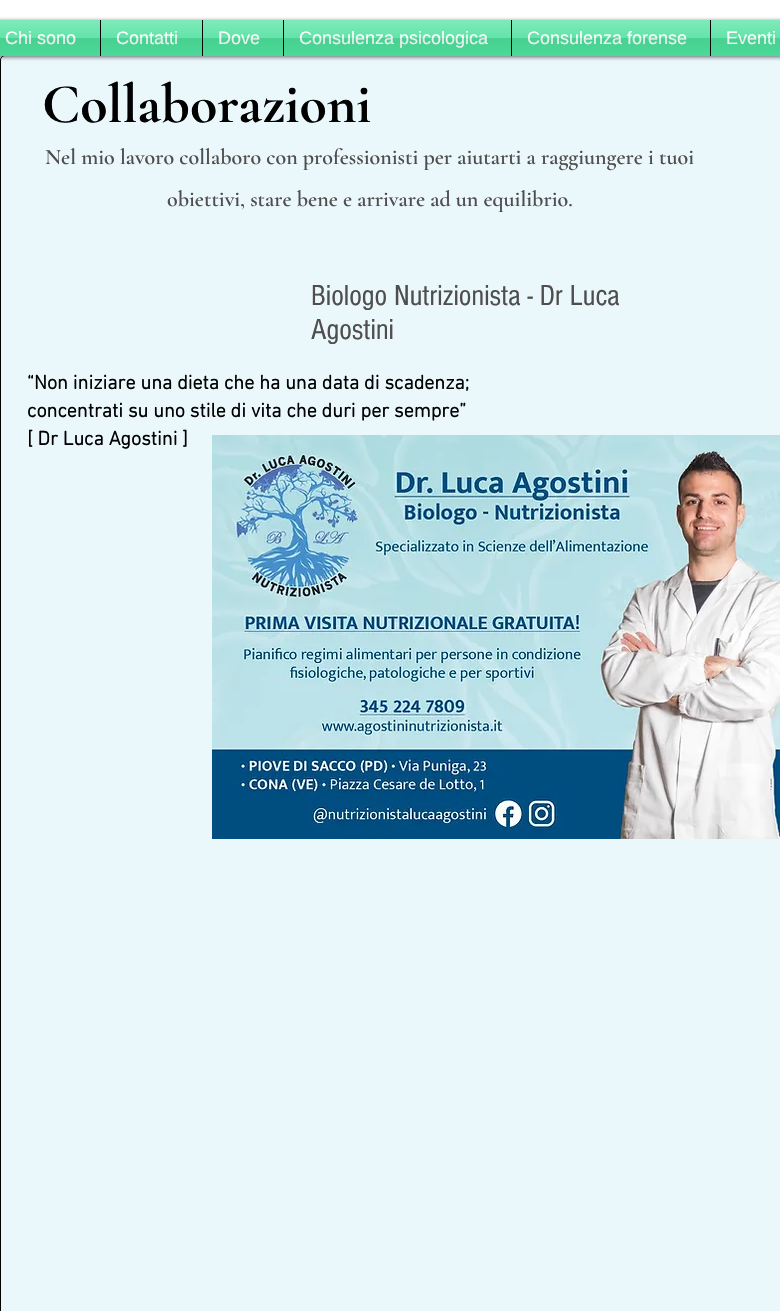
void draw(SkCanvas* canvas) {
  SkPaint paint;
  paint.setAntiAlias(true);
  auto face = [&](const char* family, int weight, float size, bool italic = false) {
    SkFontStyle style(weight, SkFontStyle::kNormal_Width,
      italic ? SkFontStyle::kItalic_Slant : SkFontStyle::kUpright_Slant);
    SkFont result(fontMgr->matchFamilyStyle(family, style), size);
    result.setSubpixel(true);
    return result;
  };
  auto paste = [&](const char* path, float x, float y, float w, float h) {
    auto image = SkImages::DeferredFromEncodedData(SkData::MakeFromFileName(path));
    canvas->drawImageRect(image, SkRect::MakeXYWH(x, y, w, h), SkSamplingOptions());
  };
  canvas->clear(0xffffffff);
  paint.setColor(0xffeaf8fc);
  canvas->drawRoundRect(SkRect::MakeXYWH(0.5f, 55.5f, 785, 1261), 4.5f, 4.5f, paint);
  paint.setStroke(true);
  paint.setStrokeWidth(1);
  paint.setColor(0xff010101);
  canvas->drawRoundRect(SkRect::MakeXYWH(0.5f, 55.5f, 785, 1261), 4.5f, 4.5f, paint);
  paint.setStroke(false);
  paint.setColor(0x99000000);
  paint.setMaskFilter(SkMaskFilter::MakeBlur(kNormal_SkBlurStyle, 2));
  canvas->drawRoundRect(SkRect::MakeXYWH(-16, 21, 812, 36), 10, 10, paint);
  paint.setMaskFilter(nullptr);
  {
    const struct { float x, y, w, h; SkColor color; } items[] = {
      {0, 20, 100, 36, 0xff4de19d},
      {101, 20, 101, 36, 0xff4de19d},
      {100, 20, 1, 36, 0xff010101},
      {203, 20, 80, 36, 0xff4de19d},
      {202, 20, 1, 36, 0xff010101},
      {284, 20, 227, 36, 0xff4de19d},
      {283, 20, 1, 36, 0xff010101},
      {512, 20, 198, 36, 0xff4de19d},
      {511, 20, 1, 36, 0xff010101},
      {711, 20, 69, 36, 0xff4de19d},
      {710, 20, 1, 36, 0xff010101},
    };
    for (auto [x, y, w, h, color] : items) {
      paint.setColor(color);
      canvas->drawRect(SkRect::MakeXYWH(x, y, w, h), paint);
    }
  }
  paste("img/7.png", 212, 435, 568, 404);
  auto f0 = face("Liberation Sans", 400, 18);
  paint.setColor(0xfffeffff);
  canvas->drawString("Chi sono", 5, 44, f0, paint);
  paste("img/1.png", 0, 20, 100, 36);
  canvas->drawString("Contatti", 116, 44, f0, paint);
  paste("img/2.png", 101, 20, 101, 36);
  canvas->drawString("Dove", 218, 44, f0, paint);
  paste("img/3.png", 203, 20, 80, 36);
  canvas->drawString("Consulenza psicologica", 299, 44, f0, paint);
  paste("img/4.png", 284, 20, 227, 36);
  canvas->drawString("Consulenza forense", 527, 44, f0, paint);
  paste("img/5.png", 512, 20, 198, 36);
  canvas->drawString("Eventi", 726, 44, f0, paint);
  paste("img/6.png", 711, 20, 69, 36);
  auto f1 = face("Cormorant Garamond", 700, 56);
  paint.setColor(0xff010101);
  canvas->drawString("Collaborazioni", 42, 122, f1, paint);
  auto f2 = face("Cormorant Garamond", 600, 22);
  paint.setColor(0xff4f4d4d);
  canvas->drawString("Nel mio lavoro collaboro con professionisti per aiutarti a raggiungere i tuoi", 45, 164, f2, paint);
  canvas->drawString("obiettivi, stare bene e arrivare ad un equilibrio.", 167, 206, f2, paint);
  auto f3 = face("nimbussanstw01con", 400, 30);
  canvas->drawString("Biologo Nutrizionista - Dr Luca", 311, 305, f3, paint);
  canvas->drawString("Agostini", 311, 339, f3, paint);
  auto f4 = face("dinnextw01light", 700, 20);
  paint.setColor(0xff010101);
  {
    const struct { const char* s; float x, y; } items[] = {
      {"“Non iniziare una dieta che ha una data di scadenza;", 27, 389},
      {"concentrati su uno stile di vita che duri per sempre”", 27, 417},
      {"[ Dr Luca Agostini ]", 27, 445},
    };
    for (auto [s, x, y] : items) {
      canvas->drawString(s, x, y, f4, paint);
    }
  }
}
